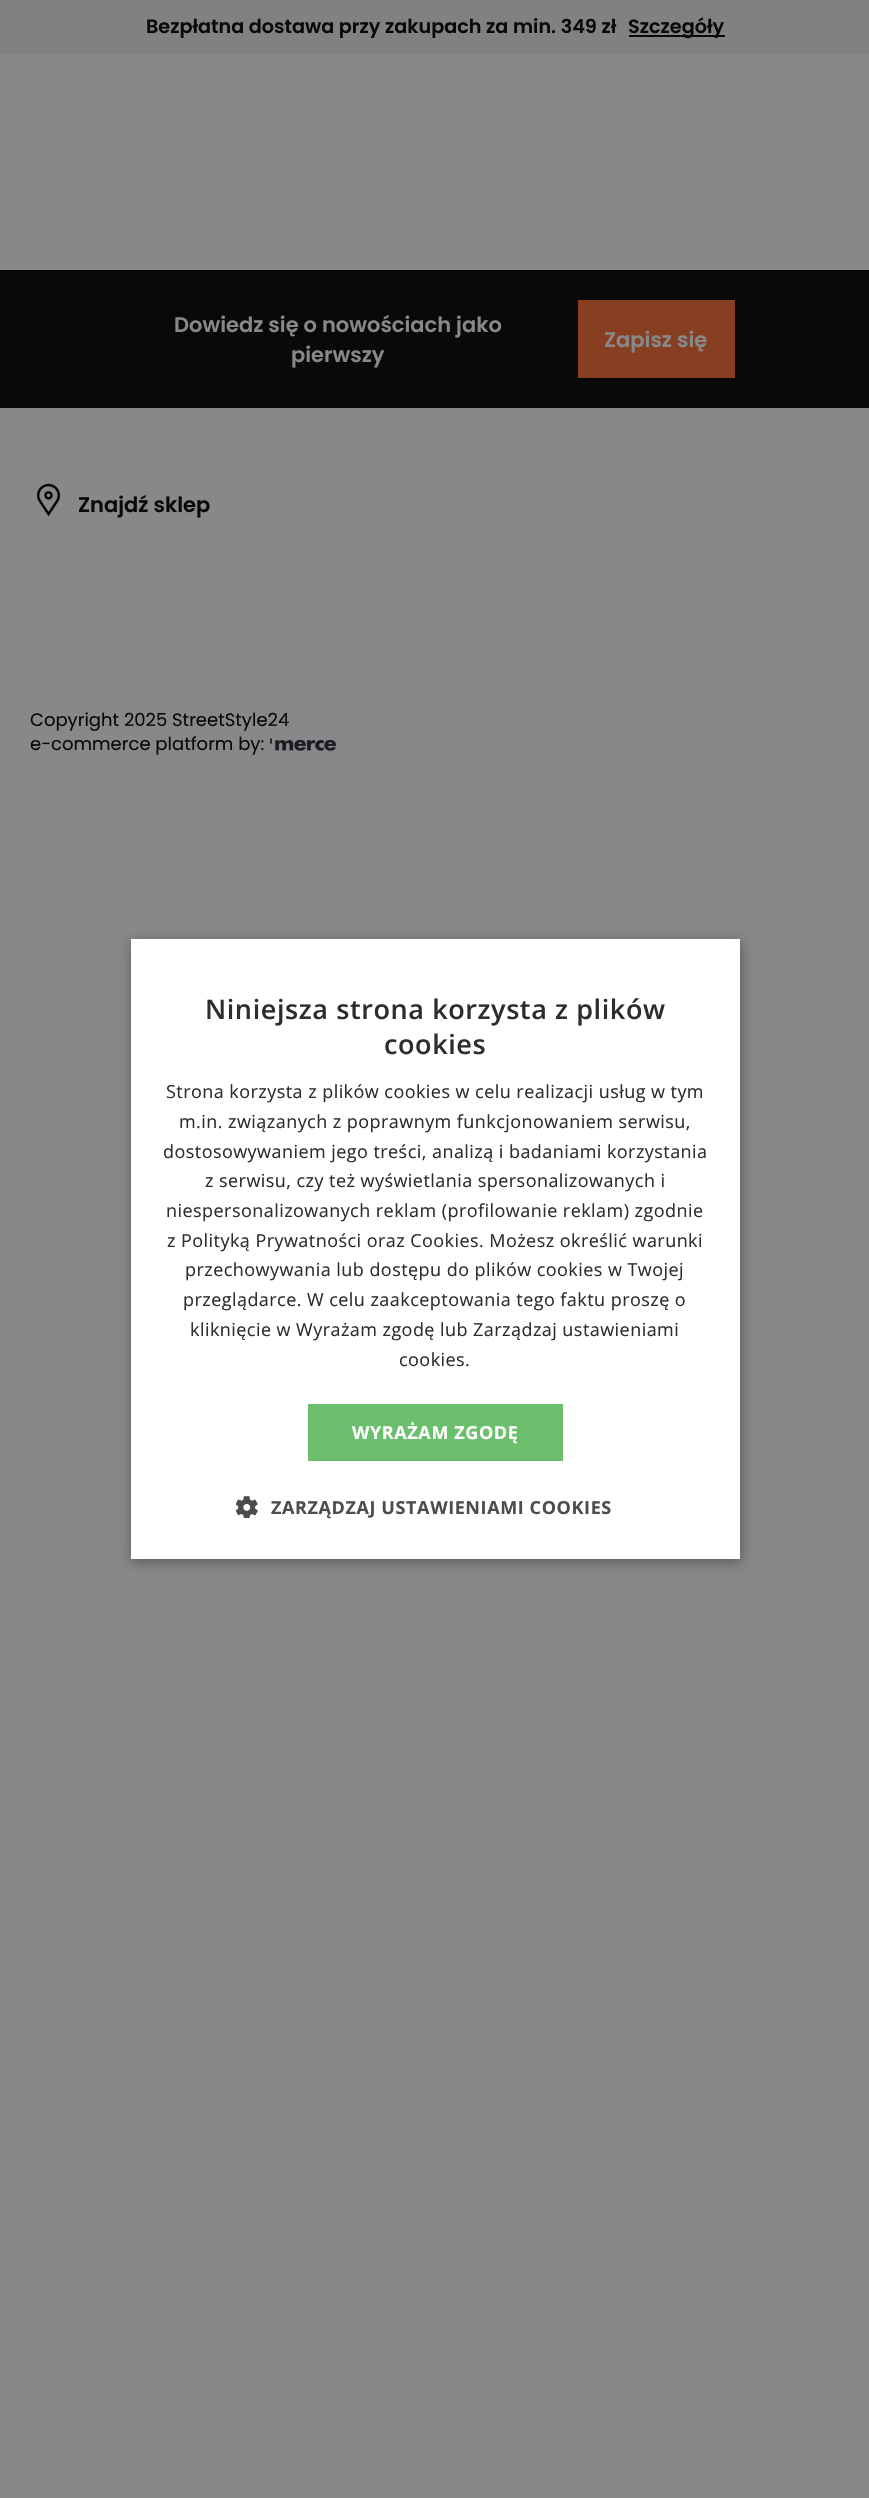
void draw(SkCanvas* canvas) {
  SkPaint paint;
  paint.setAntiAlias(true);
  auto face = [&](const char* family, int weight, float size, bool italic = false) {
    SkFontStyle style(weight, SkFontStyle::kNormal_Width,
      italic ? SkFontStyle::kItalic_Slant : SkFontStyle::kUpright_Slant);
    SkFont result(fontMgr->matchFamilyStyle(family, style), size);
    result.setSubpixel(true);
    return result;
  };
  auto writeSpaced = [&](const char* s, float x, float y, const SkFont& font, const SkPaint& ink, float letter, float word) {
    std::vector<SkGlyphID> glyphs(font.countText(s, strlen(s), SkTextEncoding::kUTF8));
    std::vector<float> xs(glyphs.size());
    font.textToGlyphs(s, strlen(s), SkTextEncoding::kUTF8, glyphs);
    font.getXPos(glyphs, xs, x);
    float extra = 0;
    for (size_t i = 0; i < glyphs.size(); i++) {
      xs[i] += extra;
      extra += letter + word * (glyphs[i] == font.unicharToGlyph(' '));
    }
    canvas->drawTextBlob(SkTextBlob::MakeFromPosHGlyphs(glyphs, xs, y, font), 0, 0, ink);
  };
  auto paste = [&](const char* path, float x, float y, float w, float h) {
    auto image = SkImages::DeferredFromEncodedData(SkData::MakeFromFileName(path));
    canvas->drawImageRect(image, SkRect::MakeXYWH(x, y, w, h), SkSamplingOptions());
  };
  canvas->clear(0xff888888);
  {
    const struct { float x, y, w, h; SkColor color; } items[] = {
      {0, 0, 869, 54, 0xff818181},
      {629, 35, 96, 2, 0xff090909},
      {0, 270, 869, 138, 0xff090909},
      {578, 300, 157, 78, 0xff883e21},
    };
    for (auto [x, y, w, h, color] : items) {
      paint.setColor(color);
      canvas->drawRect(SkRect::MakeXYWH(x, y, w, h), paint);
    }
  }
  paste("img/1.png", 37, 483, 23, 34);
  paste("img/2.png", 270, 738, 66, 13);
  paint.setColor(0x59000000);
  paint.setMaskFilter(SkMaskFilter::MakeBlur(kNormal_SkBlurStyle, 6));
  canvas->drawRect(SkRect::MakeXYWH(132, 942, 609, 620), paint);
  paint.setMaskFilter(nullptr);
  paint.setColor(0xffffffff);
  canvas->drawRect(SkRect::MakeXYWH(131, 939, 609, 620), paint);
  paint.setColor(0xff6bbe6b);
  canvas->drawRect(SkRect::MakeXYWH(308, 1404, 255, 57), paint);
  paste("img/3.png", 236, 1496, 22, 22);
  auto f0 = face("Poppins", 600, 19.2f);
  paint.setColor(0xff090909);
  canvas->drawString("Bezpłatna dostawa przy zakupach za min. 349 zł", 146, 33, f0, paint);
  canvas->drawString("Szczegóły", 628, 33, f0, paint);
  auto f1 = face("Poppins", 600, 21);
  paint.setColor(0xff888888);
  {
    const struct { const char* s; float x, y; } items[] = {
      {"Dowiedz się o nowościach jako", 174, 332},
      {"pierwszy", 291, 362},
      {"Zapisz się", 604, 347},
    };
    for (auto [s, x, y] : items) {
      canvas->drawString(s, x, y, f1, paint);
    }
  }
  paint.setColor(0xff090909);
  canvas->drawString("Znajdź sklep", 78, 512, f1, paint);
  auto f2 = face("Poppins", 400, 18);
  canvas->drawString("Copyright 2025 StreetStyle24", 30, 726, f2, paint);
  canvas->drawString("e-commerce platform by:", 30, 750, f2, paint);
  auto f3 = face("Open Sans", 600, 27);
  paint.setColor(0xff2d2d2d);
  writeSpaced("Niniejsza strona korzysta z plików", 205, 1019, f3, paint, 0.6f, 0);
  writeSpaced("cookies", 384, 1054, f3, paint, 0.6f, 0);
  auto f4 = face("Open Sans", 400, 18);
  {
    const struct { const char* s; float x, y; } items[] = {
      {"Strona korzysta z plików cookies w celu realizacji usług w tym", 166, 1098},
      {"m.in. związanych z poprawnym funkcjonowaniem serwisu,", 179, 1128},
      {"dostosowywaniem jego treści, analizą i badaniami korzystania", 163, 1158},
      {"z serwisu, czy też wyświetlania spersonalizowanych i", 205, 1187},
      {"niespersonalizowanych reklam (profilowanie reklam) zgodnie", 166, 1217},
      {"z Polityką Prywatności oraz Cookies. Możesz określić warunki", 167, 1247},
      {"przechowywania lub dostępu do plików cookies w Twojej", 185, 1276},
      {"przeglądarce. W celu zaakceptowania tego faktu proszę o", 183, 1306},
      {"kliknięcie w Wyrażam zgodę lub Zarządzaj ustawieniami", 190, 1336},
      {"cookies.", 399, 1366},
    };
    for (auto [s, x, y] : items) {
      writeSpaced(s, x, y, f4, paint, 0.45f, 0);
    }
  }
  auto f5 = face("Open Sans", 700, 18);
  paint.setColor(0xffffffff);
  writeSpaced("WYRAŻAM ZGODĘ", 352, 1439, f5, paint, 0.6f, 0);
  paint.setColor(0xff4d4d4d);
  writeSpaced("ZARZĄDZAJ USTAWIENIAMI COOKIES", 271, 1514, f5, paint, 0.6f, 0);
}
